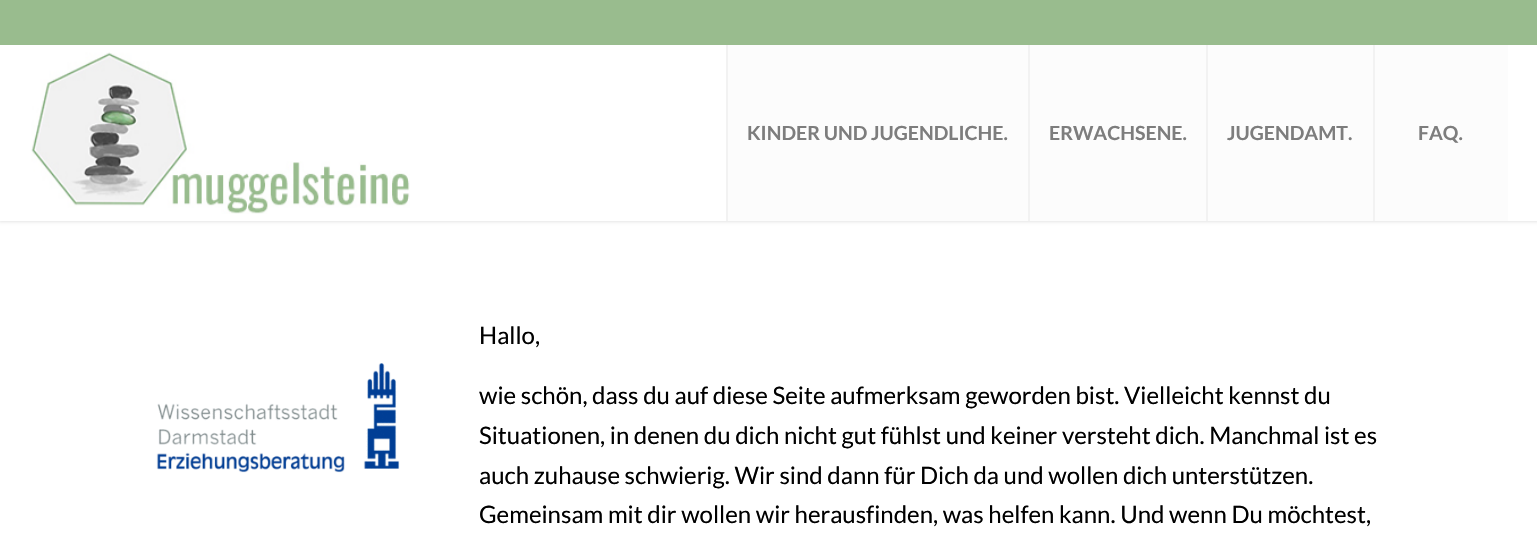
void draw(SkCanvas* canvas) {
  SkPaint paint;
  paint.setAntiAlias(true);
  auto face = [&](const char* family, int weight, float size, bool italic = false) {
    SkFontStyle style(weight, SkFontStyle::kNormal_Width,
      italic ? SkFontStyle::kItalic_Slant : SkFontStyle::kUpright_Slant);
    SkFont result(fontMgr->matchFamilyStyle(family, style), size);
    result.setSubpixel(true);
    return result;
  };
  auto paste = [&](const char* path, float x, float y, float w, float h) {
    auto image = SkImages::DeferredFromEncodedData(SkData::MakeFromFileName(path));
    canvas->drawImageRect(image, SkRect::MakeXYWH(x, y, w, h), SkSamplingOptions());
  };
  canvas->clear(0xffffffff);
  paint.setColor(0x1a000000);
  paint.setMaskFilter(SkMaskFilter::MakeBlur(kNormal_SkBlurStyle, 1.5f));
  canvas->drawRect(SkRect::MakeXYWH(-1, -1, 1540, 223), paint);
  paint.setMaskFilter(nullptr);
  {
    const struct { float x, y, w, h; SkColor color; } items[] = {
      {0, 45, 1537, 176, 0xffffffff},
      {726, 44, 2, 177, 0xfff2f2f2},
      {1028, 44, 2, 177, 0xfff2f2f2},
      {1206, 44, 2, 177, 0xfff2f2f2},
      {1373, 44, 2, 177, 0xfff2f2f2},
      {0, 0, 1537, 45, 0xff99bc8e},
    };
    for (auto [x, y, w, h, color] : items) {
      paint.setColor(color);
      canvas->drawRect(SkRect::MakeXYWH(x, y, w, h), paint);
    }
  }
  paste("img/1.png", 31, 52, 379, 162);
  {
    const struct { float x, y, w, h; SkColor color; } items[] = {
      {728, 45, 300, 176, 0xfffcfcfc},
      {1030, 45, 176, 176, 0xfffcfcfc},
      {1208, 45, 165, 176, 0xfffcfcfc},
      {1375, 45, 133, 176, 0xfffcfcfc},
    };
    for (auto [x, y, w, h, color] : items) {
      paint.setColor(color);
      canvas->drawRect(SkRect::MakeXYWH(x, y, w, h), paint);
    }
  }
  paste("img/2.png", 156, 363, 244, 110);
  auto f0 = face("Lato", 700, 19.5f);
  paint.setColor(0xff7d7d7d);
  {
    const struct { const char* s; float x, y; } items[] = {
      {"KINDER UND JUGENDLICHE.", 747, 140},
      {"ERWACHSENE.", 1049, 140},
      {"JUGENDAMT.", 1227, 140},
      {"FAQ.", 1418, 140},
    };
    for (auto [s, x, y] : items) {
      canvas->drawString(s, x, y, f0, paint);
    }
  }
  auto f1 = face("Lato", 400, 24);
  paint.setColor(0xff000000);
  {
    const struct { const char* s; float x, y; } items[] = {
      {"Hallo,", 479, 344},
      {"wie schön, dass du auf diese Seite aufmerksam geworden bist. Vielleicht kennst du", 479, 404},
      {"Situationen, in denen du dich nicht gut fühlst und keiner versteht dich. Manchmal ist es", 479, 444},
      {"auch zuhause schwierig. Wir sind dann für Dich da und wollen dich unterstützen.", 479, 484},
      {"Gemeinsam mit dir wollen wir herausfinden, was helfen kann. Und wenn Du möchtest,", 479, 523},
    };
    for (auto [s, x, y] : items) {
      canvas->drawString(s, x, y, f1, paint);
    }
  }
}
